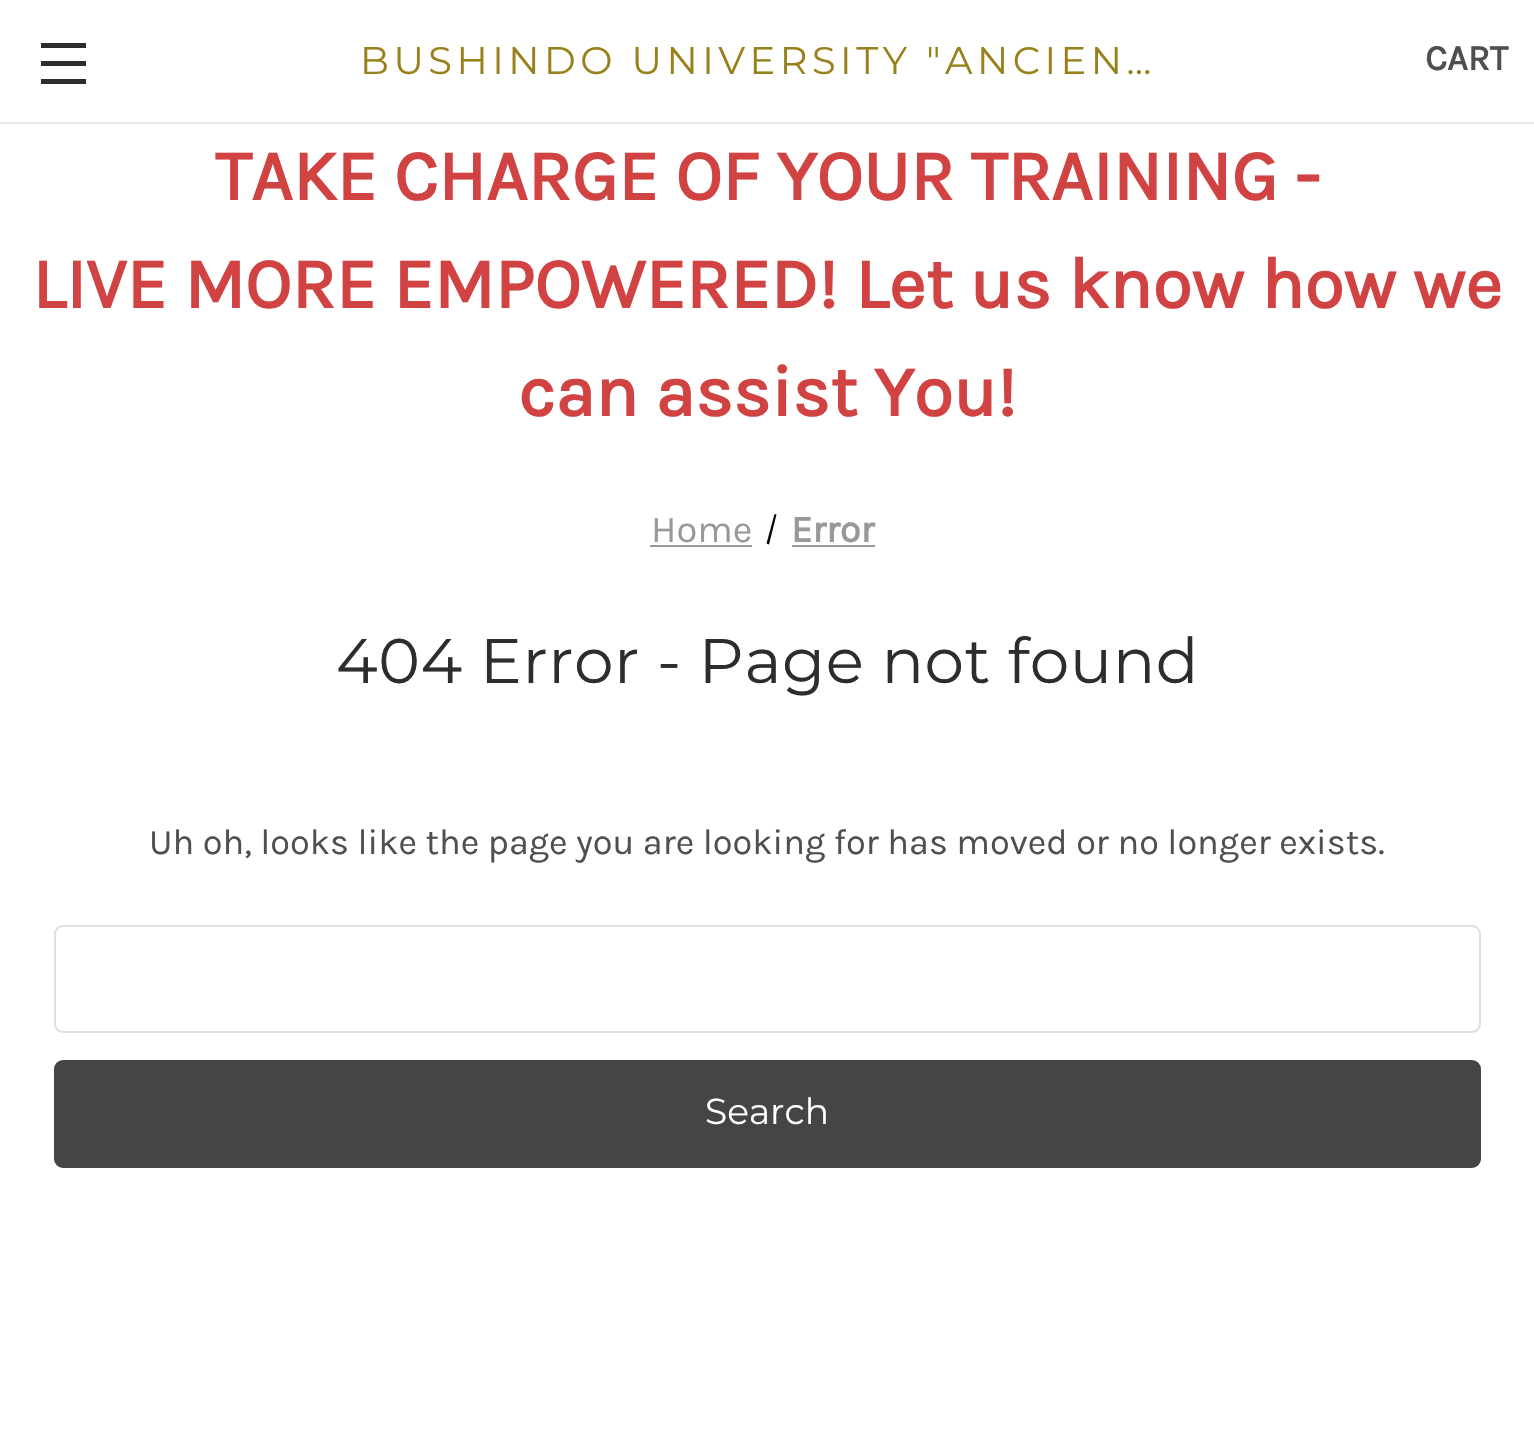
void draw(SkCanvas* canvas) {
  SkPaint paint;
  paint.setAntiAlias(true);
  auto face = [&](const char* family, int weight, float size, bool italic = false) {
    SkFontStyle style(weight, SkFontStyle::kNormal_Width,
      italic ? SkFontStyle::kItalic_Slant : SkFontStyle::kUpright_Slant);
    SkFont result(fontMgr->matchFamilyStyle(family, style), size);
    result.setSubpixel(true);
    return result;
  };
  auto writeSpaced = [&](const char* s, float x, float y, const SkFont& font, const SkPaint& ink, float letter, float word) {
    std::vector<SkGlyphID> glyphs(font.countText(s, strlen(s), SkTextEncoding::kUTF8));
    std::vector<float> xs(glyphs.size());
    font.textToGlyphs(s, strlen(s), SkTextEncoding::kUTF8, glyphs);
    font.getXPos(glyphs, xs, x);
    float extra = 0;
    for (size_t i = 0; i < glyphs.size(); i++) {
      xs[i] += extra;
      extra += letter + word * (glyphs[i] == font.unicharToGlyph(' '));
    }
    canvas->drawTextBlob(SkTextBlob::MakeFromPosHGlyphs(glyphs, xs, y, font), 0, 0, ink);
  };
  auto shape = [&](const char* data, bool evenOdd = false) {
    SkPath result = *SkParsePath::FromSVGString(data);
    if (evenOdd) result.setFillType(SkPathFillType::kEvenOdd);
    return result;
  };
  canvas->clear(0xffffffff);
  {
    const struct { float x, y, w, h; SkColor color; } items[] = {
      {0, 122, 1534, 2, 0xffe8e8e8},
      {41, 61, 45, 5, 0xff2d2d2d},
      {41, 43, 45, 5, 0xff2d2d2d},
      {41, 79, 45, 5, 0xff2d2d2d},
      {650, 545, 102, 2, 0xff989898},
    };
    for (auto [x, y, w, h, color] : items) {
      paint.setColor(color);
      canvas->drawRect(SkRect::MakeXYWH(x, y, w, h), paint);
    }
  }
  paint.setColor(0xff080600);
  canvas->drawPath(shape("M774.5 514L776.5 514.5L769 544.5L766.5 543.5Z"), paint);
  paint.setColor(0xff989898);
  canvas->drawRect(SkRect::MakeXYWH(792, 545, 83, 2), paint);
  paint.setStroke(true);
  paint.setStrokeWidth(2);
  paint.setColor(0xffdfdfdf);
  canvas->drawRoundRect(SkRect::MakeXYWH(55, 926, 1425, 106), 8, 8, paint);
  paint.setStroke(false);
  paint.setColor(0xff454545);
  canvas->drawRoundRect(SkRect::MakeXYWH(55, 1061, 1425, 106), 8, 8, paint);
  paint.setStroke(true);
  canvas->drawRoundRect(SkRect::MakeXYWH(55, 1061, 1425, 106), 8, 8, paint);
  auto f0 = face("Montserrat", 100, 38.4f);
  paint.setStroke(false);
  paint.setColor(0xff98811a);
  writeSpaced("BUSHINDO UNIVERSITY \"ANCIEN…", 360, 74, f0, paint, 4.5f, 0);
  auto f1 = face("Karla", 700, 36);
  paint.setColor(0xff4f4f4f);
  canvas->drawString("CART", 1425, 70, f1, paint);
  auto f2 = face("Karla", 700, 72);
  paint.setColor(0xffd14343);
  {
    const struct { const char* s; float x, y; } items[] = {
      {"TAKE CHARGE OF YOUR TRAINING -", 215, 200},
      {"LIVE MORE EMPOWERED! Let us know how we", 32, 308},
      {"can assist You!", 518, 416},
    };
    for (auto [s, x, y] : items) {
      canvas->drawString(s, x, y, f2, paint);
    }
  }
  auto f3 = face("Karla", 400, 38);
  paint.setColor(0xff989898);
  canvas->drawString("Home", 651, 542, f3, paint);
  auto f4 = face("Karla", 700, 38);
  canvas->drawString("Error", 791, 542, f4, paint);
  auto f5 = face("Montserrat", 100, 63);
  paint.setColor(0xff2d2d2d);
  writeSpaced("404 Error - Page not found", 336, 683, f5, paint, 0.55f, 0);
  auto f6 = face("Karla", 400, 36);
  paint.setColor(0xff4f4f4f);
  canvas->drawString("Uh oh, looks like the page you are looking for has moved or no longer exists.", 149, 854, f6, paint);
  auto f7 = face("Montserrat", 100, 36);
  paint.setColor(0xffffffff);
  canvas->drawString("Search", 705, 1124, f7, paint);
}
